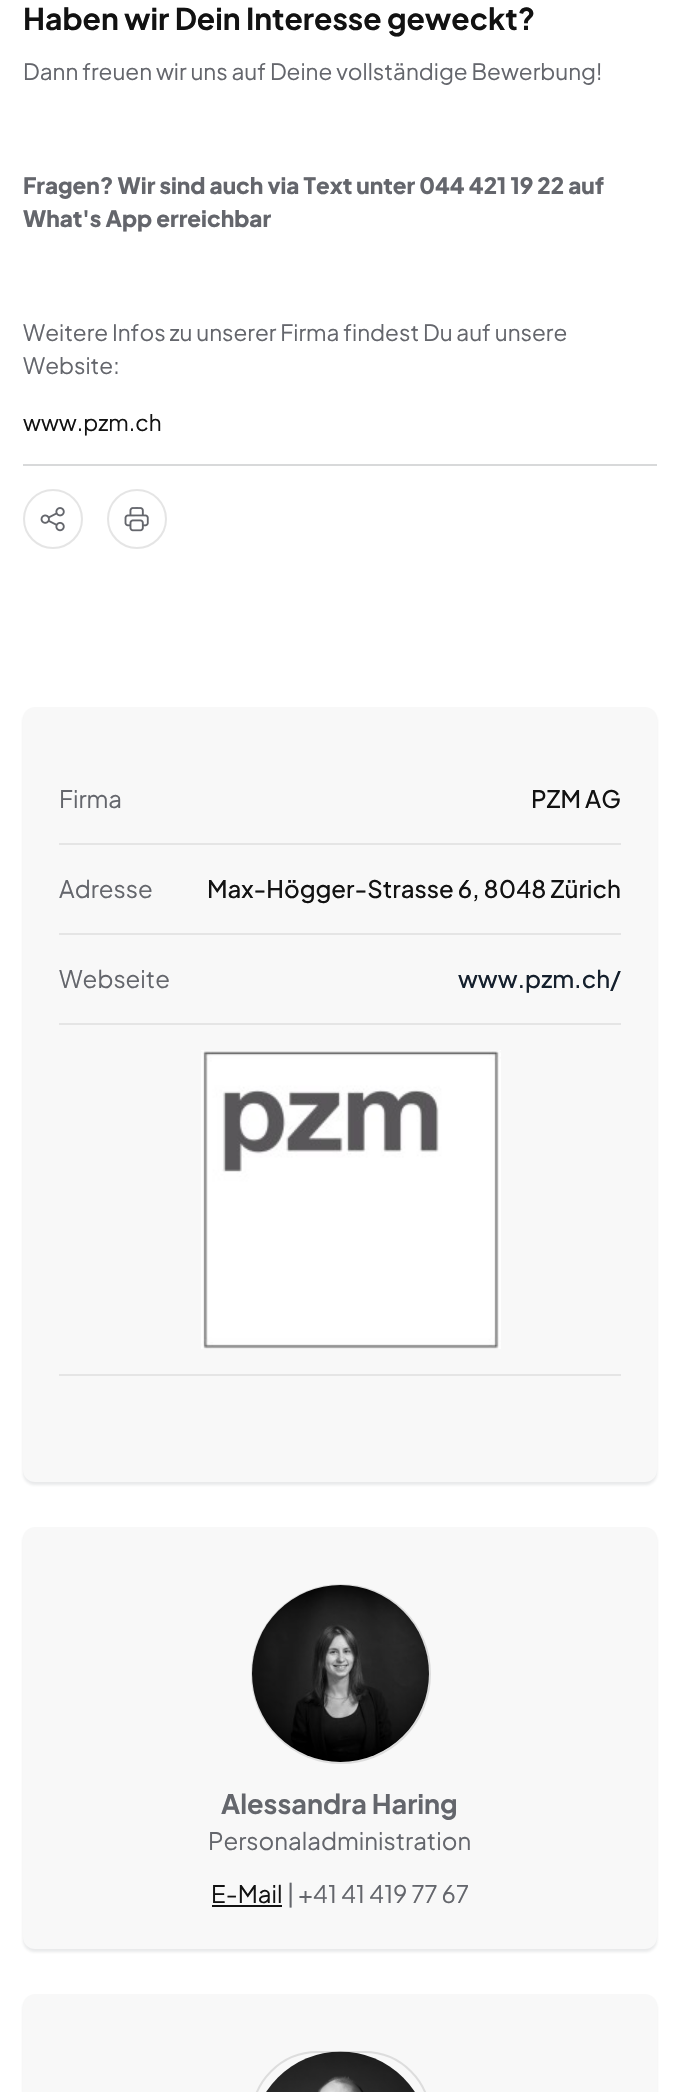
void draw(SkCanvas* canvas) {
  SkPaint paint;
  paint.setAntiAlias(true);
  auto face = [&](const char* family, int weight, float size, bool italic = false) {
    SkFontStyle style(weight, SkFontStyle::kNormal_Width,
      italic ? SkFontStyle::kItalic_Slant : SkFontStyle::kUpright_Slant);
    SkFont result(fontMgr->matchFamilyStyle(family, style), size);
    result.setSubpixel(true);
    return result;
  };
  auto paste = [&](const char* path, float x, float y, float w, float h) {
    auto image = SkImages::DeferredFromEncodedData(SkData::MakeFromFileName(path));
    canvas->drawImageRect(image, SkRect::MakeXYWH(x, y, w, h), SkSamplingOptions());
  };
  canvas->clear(0xffffffff);
  paint.setColor(0xffd8d9da);
  canvas->drawRect(SkRect::MakeXYWH(23, 464, 634, 2), paint);
  paint.setStroke(true);
  paint.setStrokeWidth(2);
  paint.setColor(0xffe5e5e5);
  canvas->drawCircle(53, 519, 29, paint);
  paste("img/1.png", 40, 507, 25, 25);
  canvas->drawCircle(137, 519, 29, paint);
  paste("img/2.png", 124, 507, 25, 25);
  paint.setStroke(false);
  paint.setColor(0x1a1c2433);
  paint.setMaskFilter(SkMaskFilter::MakeBlur(kNormal_SkBlurStyle, 1.5f));
  canvas->drawRoundRect(SkRect::MakeXYWH(23, 710, 634, 775), 12, 12, paint);
  paint.setMaskFilter(nullptr);
  paint.setColor(0xfff8f8f8);
  canvas->drawRoundRect(SkRect::MakeXYWH(23, 707, 634, 775), 12, 12, paint);
  {
    const struct { float x, y, w, h; SkColor color; } items[] = {
      {59, 843, 562, 2, 0xffe5e5e5},
      {59, 933, 562, 2, 0xffe5e5e5},
      {59, 1023, 562, 2, 0xffe5e5e5},
      {59, 1374, 562, 2, 0xffe5e5e5},
    };
    for (auto [x, y, w, h, color] : items) {
      paint.setColor(color);
      canvas->drawRect(SkRect::MakeXYWH(x, y, w, h), paint);
    }
  }
  paste("img/3.png", 201, 1050, 300, 299);
  paint.setColor(0x1a1c2433);
  paint.setMaskFilter(SkMaskFilter::MakeBlur(kNormal_SkBlurStyle, 1.5f));
  canvas->drawRoundRect(SkRect::MakeXYWH(23, 1530, 634, 422), 12, 12, paint);
  paint.setMaskFilter(nullptr);
  paint.setColor(0xfff8f8f8);
  canvas->drawRoundRect(SkRect::MakeXYWH(23, 1527, 634, 422), 12, 12, paint);
  paint.setStroke(true);
  paint.setColor(0xffdddddd);
  canvas->drawCircle(341, 1674, 89, paint);
  paste("img/4.png", 252, 1585, 177, 177);
  paint.setStroke(false);
  paint.setColor(0xff121212);
  canvas->drawRect(SkRect::MakeXYWH(212, 1905, 70, 2), paint);
  paint.setColor(0x1a1c2433);
  paint.setMaskFilter(SkMaskFilter::MakeBlur(kNormal_SkBlurStyle, 1.5f));
  canvas->drawRoundRect(SkRect::MakeXYWH(23, 1997, 634, 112), 12, 12, paint);
  paint.setMaskFilter(nullptr);
  paint.setColor(0xfff8f8f8);
  canvas->drawRoundRect(SkRect::MakeXYWH(23, 1994, 634, 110), 12, 12, paint);
  paint.setStroke(true);
  paint.setColor(0xffdddddd);
  canvas->drawRoundRect(SkRect::MakeXYWH(252, 2052, 178, 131), 89, 89, paint);
  paste("img/5.png", 266, 2051, 149, 41);
  auto f0 = face("Plus Jakarta Sans", 700, 30);
  paint.setStroke(false);
  paint.setColor(0xff121212);
  canvas->drawString("Haben wir Dein Interesse geweckt?", 23, 30, f0, paint);
  auto f1 = face("Plus Jakarta Sans", 400, 22.5f);
  paint.setColor(0xff64666c);
  canvas->drawString("Dann freuen wir uns auf Deine vollständige Bewerbung!", 23, 80, f1, paint);
  auto f2 = face("Plus Jakarta Sans", 800, 22.5f);
  canvas->drawString("Fragen? Wir sind auch via Text unter 044 421 19 22 auf", 23, 194, f2, paint);
  canvas->drawString("What's App erreichbar", 23, 227, f2, paint);
  canvas->drawString("Weitere Infos zu unserer Firma findest Du auf unsere", 23, 341, f1, paint);
  canvas->drawString("Website:", 23, 374, f1, paint);
  paint.setColor(0xff121212);
  canvas->drawString("www.pzm.ch", 23, 431, f1, paint);
  auto f3 = face("Plus Jakarta Sans", 400, 24);
  paint.setColor(0xff64666c);
  canvas->drawString("Firma", 59, 808, f3, paint);
  auto f4 = face("Plus Jakarta Sans", 500, 24);
  paint.setColor(0xff121212);
  canvas->drawString("PZM AG", 531, 808, f4, paint);
  paint.setColor(0xff64666c);
  canvas->drawString("Adresse", 59, 898, f3, paint);
  paint.setColor(0xff121212);
  canvas->drawString("Max-Högger-Strasse 6, 8048 Zürich", 207, 898, f4, paint);
  paint.setColor(0xff64666c);
  canvas->drawString("Webseite", 59, 988, f3, paint);
  paint.setColor(0xff15202d);
  canvas->drawString("www.pzm.ch/", 458, 988, f4, paint);
  auto f5 = face("Plus Jakarta Sans", 700, 27);
  paint.setColor(0xff64666c);
  canvas->drawString("Alessandra Haring", 221, 1814, f5, paint);
  canvas->drawString("Personaladministration", 208, 1850, f3, paint);
  paint.setColor(0xff121212);
  canvas->drawString("E-Mail", 211, 1903, f3, paint);
  paint.setColor(0xff64666c);
  canvas->drawString("| +41 41 419 77 67", 287, 1903, f3, paint);
}
